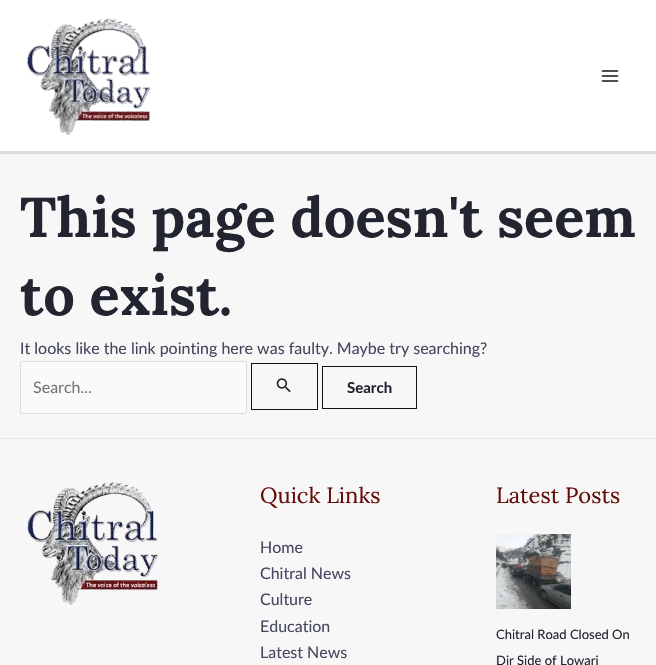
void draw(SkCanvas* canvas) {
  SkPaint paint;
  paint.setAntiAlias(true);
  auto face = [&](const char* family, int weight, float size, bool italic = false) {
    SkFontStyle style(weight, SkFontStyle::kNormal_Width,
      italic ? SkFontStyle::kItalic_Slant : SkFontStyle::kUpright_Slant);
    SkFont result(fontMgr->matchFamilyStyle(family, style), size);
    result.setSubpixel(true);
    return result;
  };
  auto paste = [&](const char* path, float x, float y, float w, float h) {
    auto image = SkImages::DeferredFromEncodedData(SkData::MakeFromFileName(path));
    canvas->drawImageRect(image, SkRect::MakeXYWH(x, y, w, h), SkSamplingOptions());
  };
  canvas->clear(0xfff7f7f8);
  paint.setColor(0xffffffff);
  canvas->drawRect(SkRect::MakeXYWH(0, 0, 656, 151), paint);
  paint.setColor(0xffdddddd);
  canvas->drawRect(SkRect::MakeXYWH(0, 151, 656, 3), paint);
  paste("img/1.png", 26, 18, 125, 117);
  paste("img/2.png", 601, 70, 18, 12);
  paint.setColor(0xfffafafa);
  canvas->drawRoundRect(SkRect::MakeXYWH(20.5f, 361.5f, 226, 52), 1.5f, 1.5f, paint);
  paint.setStroke(true);
  paint.setStrokeWidth(1);
  paint.setColor(0xffdddddd);
  canvas->drawRoundRect(SkRect::MakeXYWH(20.5f, 361.5f, 226, 52), 1.5f, 1.5f, paint);
  paint.setColor(0xff111218);
  canvas->drawRect(SkRect::MakeXYWH(251.5f, 363.5f, 66, 46), paint);
  paste("img/3.png", 276, 378, 15, 15);
  canvas->drawRect(SkRect::MakeXYWH(322.5f, 366.5f, 94, 42), paint);
  paint.setStroke(false);
  paint.setColor(0xffe6e6e6);
  canvas->drawRect(SkRect::MakeXYWH(0, 438, 656, 1), paint);
  paste("img/4.png", 27, 482, 131, 123);
  paste("img/5.png", 496, 534, 75, 75);
  auto f0 = face("Lora", 700, 56);
  paint.setColor(0xff22242f);
  canvas->drawString("This page doesn't seem", 20, 237, f0, paint);
  canvas->drawString("to exist.", 20, 315, f0, paint);
  auto f1 = face("Lato", 400, 16);
  paint.setColor(0xff45485f);
  canvas->drawString("It looks like the link pointing here was faulty. Maybe try searching?", 20, 354, f1, paint);
  paint.setColor(0xff757575);
  canvas->drawString("Search...", 33, 393, f1, paint);
  auto f2 = face("Lato", 700, 15);
  paint.setColor(0xff22242f);
  canvas->drawString("Search", 347, 393, f2, paint);
  auto f3 = face("Lora", 400, 22);
  paint.setColor(0xff640b07);
  canvas->drawString("Quick Links", 260, 503, f3, paint);
  paint.setColor(0xff45485f);
  {
    const struct { const char* s; float x, y; } items[] = {
      {"Home", 260, 553},
      {"Chitral News", 260, 579},
      {"Culture", 260, 605},
      {"Education", 260, 632},
      {"Latest News", 260, 658},
    };
    for (auto [s, x, y] : items) {
      canvas->drawString(s, x, y, f1, paint);
    }
  }
  paint.setColor(0xff640b07);
  canvas->drawString("Latest Posts", 496, 503, f3, paint);
  auto f4 = face("Lato", 400, 13);
  paint.setColor(0xff22242f);
  canvas->drawString("Chitral Road Closed On", 496, 639, f4, paint);
  canvas->drawString("Dir Side of Lowari", 496, 665, f4, paint);
}
